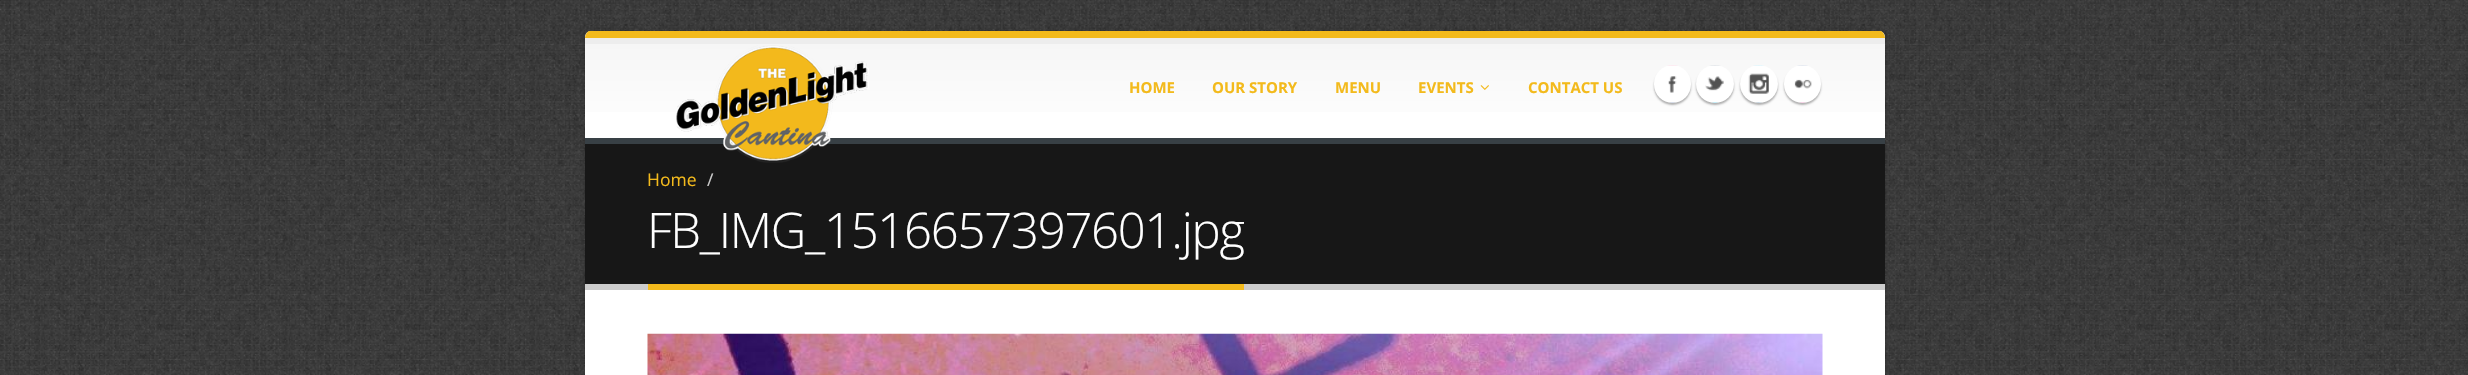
void draw(SkCanvas* canvas) {
  SkPaint paint;
  paint.setAntiAlias(true);
  auto face = [&](const char* family, int weight, float size, bool italic = false) {
    SkFontStyle style(weight, SkFontStyle::kNormal_Width,
      italic ? SkFontStyle::kItalic_Slant : SkFontStyle::kUpright_Slant);
    SkFont result(fontMgr->matchFamilyStyle(family, style), size);
    result.setSubpixel(true);
    return result;
  };
  auto writeSpaced = [&](const char* s, float x, float y, const SkFont& font, const SkPaint& ink, float letter, float word) {
    std::vector<SkGlyphID> glyphs(font.countText(s, strlen(s), SkTextEncoding::kUTF8));
    std::vector<float> xs(glyphs.size());
    font.textToGlyphs(s, strlen(s), SkTextEncoding::kUTF8, glyphs);
    font.getXPos(glyphs, xs, x);
    float extra = 0;
    for (size_t i = 0; i < glyphs.size(); i++) {
      xs[i] += extra;
      extra += letter + word * (glyphs[i] == font.unicharToGlyph(' '));
    }
    canvas->drawTextBlob(SkTextBlob::MakeFromPosHGlyphs(glyphs, xs, y, font), 0, 0, ink);
  };
  auto paste = [&](const char* path, float x, float y, float w, float h) {
    auto image = SkImages::DeferredFromEncodedData(SkData::MakeFromFileName(path));
    canvas->drawImageRect(image, SkRect::MakeXYWH(x, y, w, h), SkSamplingOptions());
  };
  auto shape = [&](const char* data, bool evenOdd = false) {
    SkPath result = *SkParsePath::FromSVGString(data);
    if (evenOdd) result.setFillType(SkPathFillType::kEvenOdd);
    return result;
  };
  canvas->clear(0xffffffff);
  paste("img/1.png", 0, 0, 2468, 375);
  paint.setColor(0x26000000);
  paint.setMaskFilter(SkMaskFilter::MakeBlur(kNormal_SkBlurStyle, 2.5f));
  canvas->drawRoundRect(SkRect::MakeXYWH(585, 31, 1300, 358), 6, 6, paint);
  paint.setMaskFilter(nullptr);
  paint.setColor(0xffffffff);
  canvas->drawRoundRect(SkRect::MakeXYWH(585, 31, 1300, 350), 6, 6, paint);
  paint.setColor(0xfff3ba1c);
  canvas->drawPath(shape("M1885 38H585C585 35 587 32 589 31H1881C1883 32 1885 35 1885 38Z"), paint);
  {
    const SkColor colors[] = {0xfff6f6f6, 0xffffffff};
    const float stops[] = {0, 1};
    const SkPoint ends[] = {{1235, 44}, {1235, 138}};
    paint.setShader(SkGradientShader::MakeLinear(ends, colors, stops, 2, SkTileMode::kClamp));
    paint.setAlpha(255);
  }
  canvas->drawRect(SkRect::MakeXYWH(585, 44, 1300, 68), paint);
  paint.setShader(nullptr);
  {
    const struct { float x, y, w, h; SkColor color; } items[] = {
      {585, 38, 1300, 6, 0xffededed},
      {585, 144, 1300, 140, 0xff171717},
      {585, 138, 1300, 6, 0xff384045},
    };
    for (auto [x, y, w, h, color] : items) {
      paint.setColor(color);
      canvas->drawRect(SkRect::MakeXYWH(x, y, w, h), paint);
    }
  }
  paste("img/2.png", 676, 45, 193, 118);
  paste("img/3.png", 1480, 85, 9, 5);
  paint.setColor(0x4d000000);
  paint.setMaskFilter(SkMaskFilter::MakeBlur(kNormal_SkBlurStyle, 1));
  canvas->drawRoundRect(SkRect::MakeXYWH(1654, 68, 37, 37), 18.5f, 18.5f, paint);
  paint.setMaskFilter(nullptr);
  paint.setColor(0xffffffff);
  canvas->drawRoundRect(SkRect::MakeXYWH(1654, 65, 37, 38), 18.5f, 18.5f, paint);
  paste("img/4.png", 1667, 65, 11, 38);
  paint.setColor(0x4d000000);
  paint.setMaskFilter(SkMaskFilter::MakeBlur(kNormal_SkBlurStyle, 1));
  canvas->drawRoundRect(SkRect::MakeXYWH(1696, 68, 38, 37), 18.5f, 18.5f, paint);
  paint.setMaskFilter(nullptr);
  paint.setColor(0xffffffff);
  canvas->drawCircle(1715, 84, 19, paint);
  paste("img/5.png", 1705, 65, 19, 38);
  paint.setColor(0x4d000000);
  paint.setMaskFilter(SkMaskFilter::MakeBlur(kNormal_SkBlurStyle, 1));
  canvas->drawRoundRect(SkRect::MakeXYWH(1740, 68, 38, 37), 18.5f, 18.5f, paint);
  paint.setMaskFilter(nullptr);
  paint.setColor(0xffffffff);
  canvas->drawCircle(1759, 84, 19, paint);
  paste("img/6.png", 1748, 65, 21, 38);
  paint.setColor(0x4d000000);
  paint.setMaskFilter(SkMaskFilter::MakeBlur(kNormal_SkBlurStyle, 1));
  canvas->drawRoundRect(SkRect::MakeXYWH(1784, 68, 37, 37), 18.5f, 18.5f, paint);
  paint.setMaskFilter(nullptr);
  paint.setColor(0xffffffff);
  canvas->drawRoundRect(SkRect::MakeXYWH(1784, 65, 37, 38), 18.5f, 18.5f, paint);
  paste("img/7.png", 1794, 65, 18, 38);
  paint.setColor(0xffcccccc);
  canvas->drawRect(SkRect::MakeXYWH(585, 284, 1300, 6), paint);
  paint.setColor(0xfff3ba1c);
  canvas->drawRect(SkRect::MakeXYWH(648, 284, 596, 6), paint);
  paste("img/8.png", 647, 333, 1176, 42);
  auto f0 = face("Open Sans", 700, 15);
  {
    const struct { const char* s; float x, y; } items[] = {
      {"HOME", 1129, 93},
      {"OUR STORY", 1212, 93},
      {"MENU", 1335, 93},
      {"EVENTS", 1418, 93},
      {"CONTACT US", 1528, 93},
    };
    for (auto [s, x, y] : items) {
      canvas->drawString(s, x, y, f0, paint);
    }
  }
  auto f1 = face("Open Sans", 400, 17.5f);
  canvas->drawString("Home", 647, 186, f1, paint);
  paint.setColor(0xffcccccc);
  canvas->drawString("/", 707, 186, f1, paint);
  auto f2 = face("Open Sans", 300, 49);
  paint.setColor(0xffffffff);
  writeSpaced("FB_IMG_1516657397601.jpg", 647, 248, f2, paint, -1.25f, 0);
}
